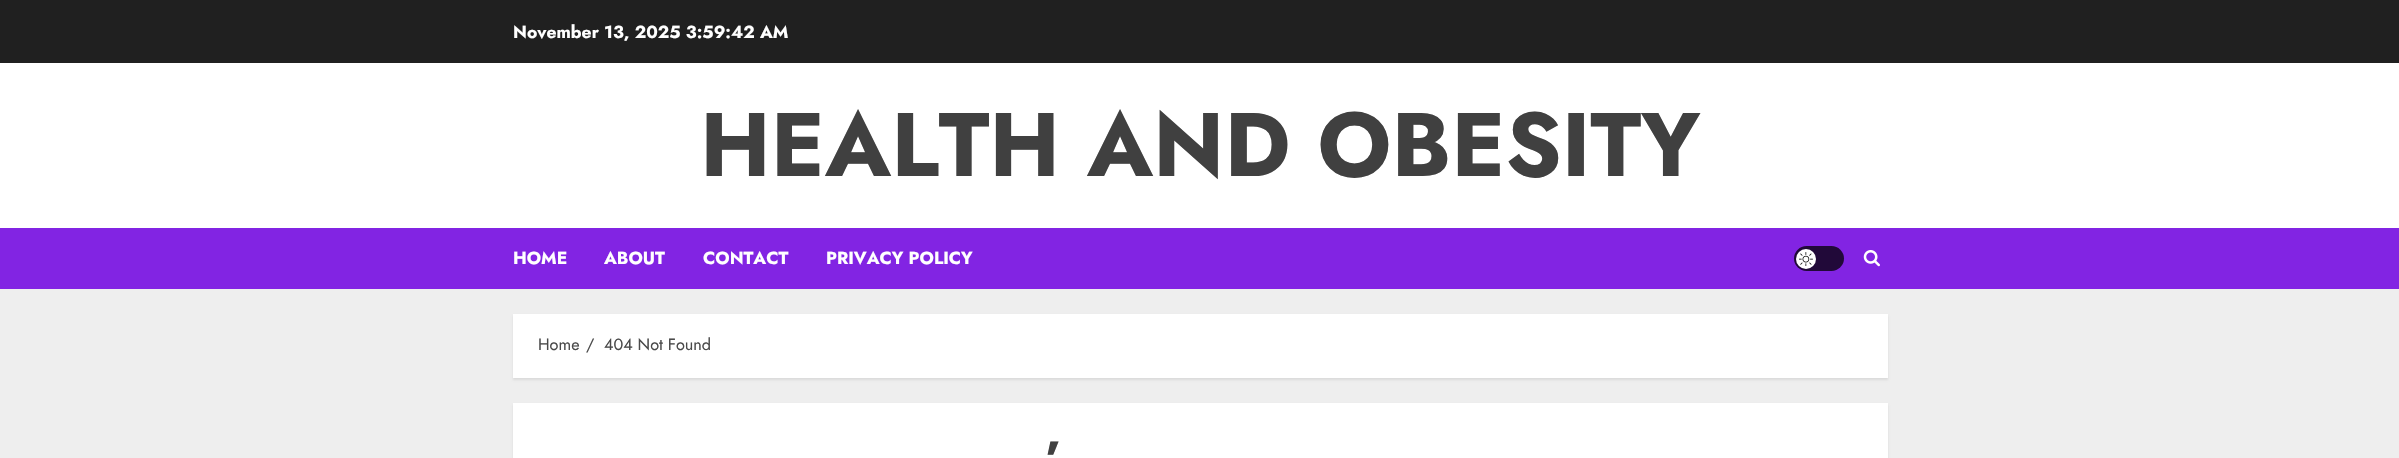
void draw(SkCanvas* canvas) {
  SkPaint paint;
  paint.setAntiAlias(true);
  auto face = [&](const char* family, int weight, float size, bool italic = false) {
    SkFontStyle style(weight, SkFontStyle::kNormal_Width,
      italic ? SkFontStyle::kItalic_Slant : SkFontStyle::kUpright_Slant);
    SkFont result(fontMgr->matchFamilyStyle(family, style), size);
    result.setSubpixel(true);
    return result;
  };
  auto paste = [&](const char* path, float x, float y, float w, float h) {
    auto image = SkImages::DeferredFromEncodedData(SkData::MakeFromFileName(path));
    canvas->drawImageRect(image, SkRect::MakeXYWH(x, y, w, h), SkSamplingOptions());
  };
  canvas->clear(0xffeeeeee);
  {
    const struct { float x, y, w, h; SkColor color; } items[] = {
      {0, 0, 2399, 63, 0xff202020},
      {0, 63, 2399, 165, 0xffffffff},
      {0, 228, 2399, 61, 0xff8224e3},
    };
    for (auto [x, y, w, h, color] : items) {
      paint.setColor(color);
      canvas->drawRect(SkRect::MakeXYWH(x, y, w, h), paint);
    }
  }
  paint.setColor(0xff210939);
  canvas->drawRoundRect(SkRect::MakeXYWH(1794, 246, 50, 25), 12.5f, 12.5f, paint);
  paint.setColor(0xffffffff);
  canvas->drawCircle(1806, 259, 10, paint);
  paste("img/1.png", 1799, 252, 14, 14);
  paste("img/2.png", 1863, 250, 17, 17);
  paint.setColor(0x14000000);
  paint.setMaskFilter(SkMaskFilter::MakeBlur(kNormal_SkBlurStyle, 1));
  canvas->drawRect(SkRect::MakeXYWH(513, 316, 1375, 64), paint);
  paint.setMaskFilter(nullptr);
  paint.setColor(0xffffffff);
  canvas->drawRect(SkRect::MakeXYWH(513, 314, 1375, 64), paint);
  paint.setColor(0x14000000);
  paint.setMaskFilter(SkMaskFilter::MakeBlur(kNormal_SkBlurStyle, 1));
  canvas->drawRect(SkRect::MakeXYWH(513, 405, 1375, 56), paint);
  paint.setMaskFilter(nullptr);
  paint.setColor(0xffffffff);
  canvas->drawRect(SkRect::MakeXYWH(513, 403, 1375, 55), paint);
  auto f0 = face("Jost", 700, 17.5f);
  canvas->drawString("November 13, 2025 3:59:42 AM", 513, 38, f0, paint);
  auto f1 = face("Jost", 700, 90);
  paint.setColor(0xff404040);
  canvas->drawString("HEALTH AND OBESITY", 700, 176, f1, paint);
  paint.setColor(0xffffffff);
  {
    const struct { const char* s; float x, y; } items[] = {
      {"HOME", 513, 264},
      {"ABOUT", 604, 264},
      {"CONTACT", 703, 264},
      {"PRIVACY POLICY", 826, 264},
    };
    for (auto [s, x, y] : items) {
      canvas->drawString(s, x, y, f0, paint);
    }
  }
  auto f2 = face("Jost", 400, 16.25f);
  paint.setColor(0xff4a4a4a);
  {
    const struct { const char* s; float x, y; } items[] = {
      {"Home", 538, 350},
      {"/", 586, 350},
      {"404 Not Found", 604, 350},
    };
    for (auto [s, x, y] : items) {
      canvas->drawString(s, x, y, f2, paint);
    }
  }
  auto f3 = face("Jost", 700, 52);
  paint.setColor(0xff404040);
  canvas->drawString("’", 1045, 478, f3, paint);
}
